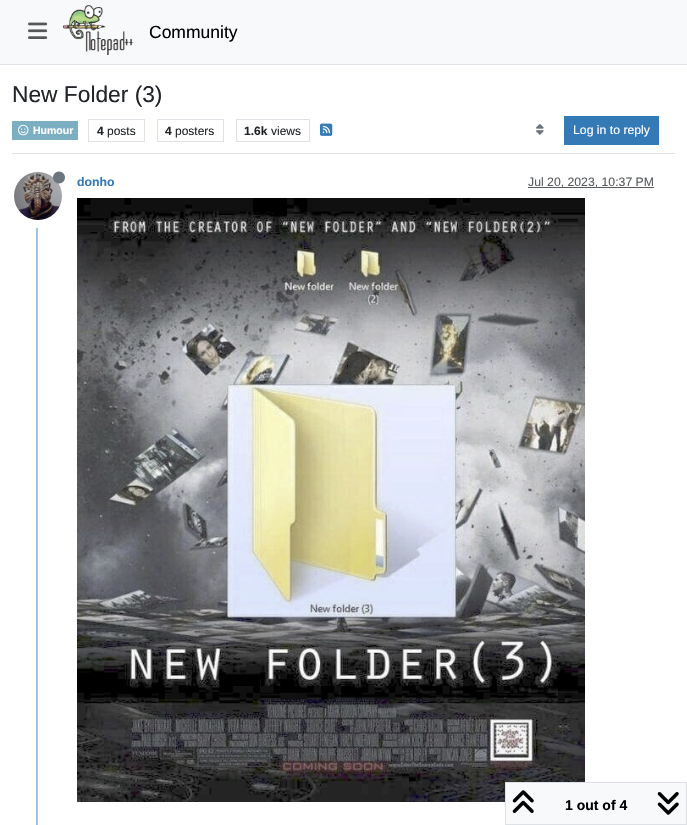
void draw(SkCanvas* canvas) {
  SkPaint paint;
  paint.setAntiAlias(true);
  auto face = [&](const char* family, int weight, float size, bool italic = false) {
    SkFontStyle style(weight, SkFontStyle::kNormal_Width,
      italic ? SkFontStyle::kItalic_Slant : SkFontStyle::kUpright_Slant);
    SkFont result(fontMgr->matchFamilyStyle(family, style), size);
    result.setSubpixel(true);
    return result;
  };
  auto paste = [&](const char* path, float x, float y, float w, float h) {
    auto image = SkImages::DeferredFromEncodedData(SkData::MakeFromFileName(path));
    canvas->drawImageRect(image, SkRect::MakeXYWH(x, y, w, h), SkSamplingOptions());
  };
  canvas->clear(0xffffffff);
  paint.setColor(0xfff8f9fa);
  canvas->drawRect(SkRect::MakeXYWH(0, 0, 687, 64), paint);
  paint.setColor(0xffdee2e6);
  canvas->drawRect(SkRect::MakeXYWH(0, 64, 687, 1), paint);
  paste("img/1.png", 28, 22, 20, 17);
  paste("img/2.png", 63, 5, 71, 50);
  canvas->drawRect(SkRect::MakeXYWH(12, 153, 663, 1), paint);
  paint.setColor(0xff7cafc2);
  canvas->drawRect(SkRect::MakeXYWH(12, 121, 66, 19), paint);
  paste("img/3.png", 18, 124, 11, 12);
  paint.setStroke(true);
  paint.setStrokeWidth(1);
  paint.setColor(0xffdee2e6);
  canvas->drawRect(SkRect::MakeXYWH(88.5f, 119.5f, 56, 22), paint);
  canvas->drawRect(SkRect::MakeXYWH(157.5f, 119.5f, 66, 22), paint);
  canvas->drawRect(SkRect::MakeXYWH(236.5f, 119.5f, 73, 22), paint);
  paste("img/4.png", 320, 123, 13, 13);
  paste("img/5.png", 536, 124, 8, 11);
  paint.setStroke(false);
  paint.setColor(0xff337ab7);
  canvas->drawRect(SkRect::MakeXYWH(564, 116, 95, 29), paint);
  paint.setColor(0xffa0c4e4);
  canvas->drawRect(SkRect::MakeXYWH(36, 170, 2, 655), paint);
  paint.setStroke(true);
  paint.setStrokeWidth(8);
  paint.setColor(0xffffffff);
  canvas->drawCircle(38, 196, 28, paint);
  paste("img/6.png", 14, 172, 48, 48);
  paste("img/7.png", 53, 171, 12, 13);
  paint.setStroke(false);
  paint.setColor(0xff595c5f);
  canvas->drawRect(SkRect::MakeXYWH(528, 187, 126, 1), paint);
  paste("img/8.png", 77, 198, 508, 604);
  paint.setColor(0xfff8f9fa);
  canvas->drawRect(SkRect::MakeXYWH(505.5f, 782.5f, 181, 42), paint);
  paint.setStroke(true);
  paint.setStrokeWidth(1);
  paint.setColor(0xffdee2e6);
  canvas->drawRect(SkRect::MakeXYWH(505.5f, 782.5f, 181, 42), paint);
  paste("img/9.png", 512, 790, 22, 23);
  paste("img/10.png", 657, 792, 22, 23);
  auto f0 = face("Liberation Sans", 400, 17.5f);
  paint.setStroke(false);
  paint.setColor(0xff000000);
  canvas->drawString("Community", 149, 38, f0, paint);
  auto f1 = face("Liberation Sans", 400, 22.75f);
  paint.setColor(0xff212529);
  canvas->drawString("New Folder (3)", 12, 102, f1, paint);
  auto f2 = face("Liberation Sans", 700, 10.5f);
  paint.setColor(0xffffffff);
  canvas->drawString("Humour", 33, 134, f2, paint);
  auto f3 = face("Liberation Sans", 700, 12);
  paint.setColor(0xff212529);
  canvas->drawString("4", 97, 135, f3, paint);
  auto f4 = face("Liberation Sans", 400, 12);
  canvas->drawString("posts", 107, 135, f4, paint);
  canvas->drawString("4", 165, 135, f3, paint);
  canvas->drawString("posters", 175, 135, f4, paint);
  canvas->drawString("1.6k", 244, 135, f3, paint);
  canvas->drawString("views", 271, 135, f4, paint);
  auto f5 = face("Liberation Sans", 400, 12.25f);
  paint.setColor(0xffffffff);
  canvas->drawString("Log in to reply", 573, 134, f5, paint);
  auto f6 = face("Liberation Sans", 700, 12.25f);
  paint.setColor(0xff337ab7);
  canvas->drawString("donho", 77, 186, f6, paint);
  paint.setColor(0xff585b5e);
  canvas->drawString("Jul 20, 2023, 10:37 PM", 528, 186, f5, paint);
  auto f7 = face("Liberation Sans", 700, 14);
  paint.setColor(0xff000000);
  canvas->drawString("1 out of 4", 565, 810, f7, paint);
}
